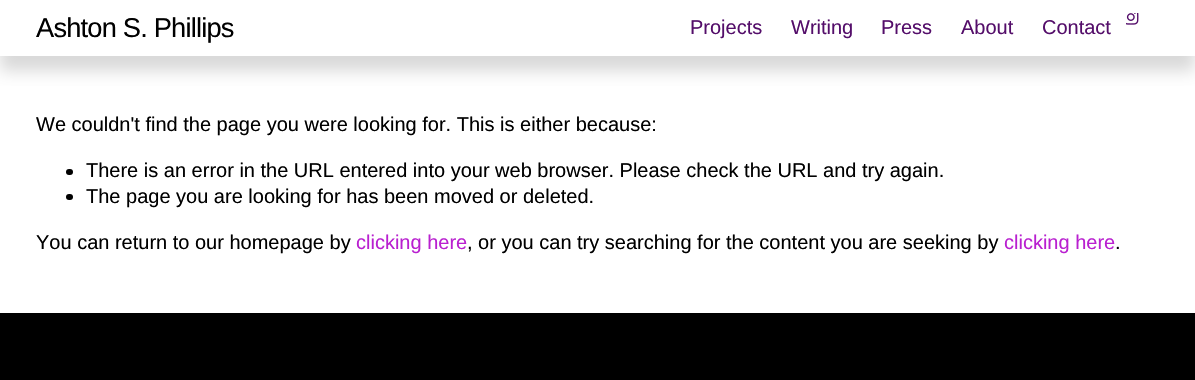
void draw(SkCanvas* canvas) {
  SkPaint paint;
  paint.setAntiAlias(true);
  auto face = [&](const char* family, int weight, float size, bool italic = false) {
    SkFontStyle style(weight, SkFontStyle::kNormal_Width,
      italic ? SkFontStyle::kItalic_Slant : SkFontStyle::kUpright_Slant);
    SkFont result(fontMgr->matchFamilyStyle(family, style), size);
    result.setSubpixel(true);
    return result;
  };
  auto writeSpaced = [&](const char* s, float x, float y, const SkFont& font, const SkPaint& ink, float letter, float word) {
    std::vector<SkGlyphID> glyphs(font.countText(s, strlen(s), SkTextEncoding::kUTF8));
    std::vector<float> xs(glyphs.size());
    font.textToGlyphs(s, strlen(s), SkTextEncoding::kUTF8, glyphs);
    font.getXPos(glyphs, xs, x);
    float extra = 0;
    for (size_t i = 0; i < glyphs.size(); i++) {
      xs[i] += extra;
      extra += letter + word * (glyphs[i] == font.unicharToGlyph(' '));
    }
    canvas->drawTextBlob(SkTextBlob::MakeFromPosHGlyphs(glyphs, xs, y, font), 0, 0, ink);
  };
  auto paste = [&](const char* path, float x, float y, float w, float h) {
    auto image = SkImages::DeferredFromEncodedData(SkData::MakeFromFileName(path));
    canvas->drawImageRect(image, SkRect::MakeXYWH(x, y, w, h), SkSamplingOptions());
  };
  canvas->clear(0xffffffff);
  canvas->save();
  canvas->clipRect(SkRect::MakeXYWH(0, 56, 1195, 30));
  paint.setColor(0xffd9d9d9);
  paint.setMaskFilter(SkMaskFilter::MakeBlur(kNormal_SkBlurStyle, 7.5f));
  canvas->drawRect(SkRect::MakeXYWH(0, 15, 1195, 56), paint);
  paint.setMaskFilter(nullptr);
  canvas->restore();
  paste("img/1.png", 1126, 13, 13, 12);
  paint.setColor(0xff000000);
  canvas->drawRoundRect(SkRect::MakeXYWH(66, 169, 7, 6), 3, 3, paint);
  canvas->drawRoundRect(SkRect::MakeXYWH(66, 194, 7, 6), 3, 3, paint);
  canvas->drawRect(SkRect::MakeXYWH(0, 313, 1195, 67), paint);
  auto f0 = face("Liberation Sans", 400, 27.25f);
  writeSpaced("Ashton S. Phillips", 36, 37, f0, paint, -0.8f, 0);
  auto f1 = face("Liberation Sans", 400, 20);
  paint.setColor(0xff540e6a);
  {
    const struct { const char* s; float x, y; } items[] = {
      {"Projects", 690, 34},
      {"Writing", 791, 34},
      {"Press", 881, 34},
      {"About", 961, 34},
      {"Contact", 1042, 34},
    };
    for (auto [s, x, y] : items) {
      canvas->drawString(s, x, y, f1, paint);
    }
  }
  paint.setColor(0xff000000);
  {
    const struct { const char* s; float x, y; } items[] = {
      {"We couldn't find the page you were looking for. This is either because:", 36, 131},
      {"There is an error in the URL entered into your web browser. Please check the URL and try again.", 86, 177},
      {"The page you are looking for has been moved or deleted.", 86, 203},
      {"You can return to our homepage by", 36, 249},
    };
    for (auto [s, x, y] : items) {
      canvas->drawString(s, x, y, f1, paint);
    }
  }
  paint.setColor(0xffb920d0);
  canvas->drawString("clicking here", 356, 249, f1, paint);
  paint.setColor(0xff000000);
  canvas->drawString(", or you can try searching for the content you are seeking by", 467, 249, f1, paint);
  paint.setColor(0xffb920d0);
  canvas->drawString("clicking here", 1004, 249, f1, paint);
  paint.setColor(0xff000000);
  canvas->drawString(".", 1115, 249, f1, paint);
}
